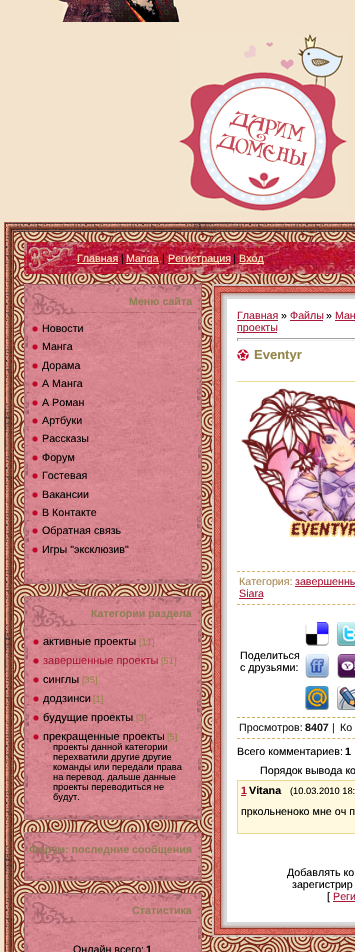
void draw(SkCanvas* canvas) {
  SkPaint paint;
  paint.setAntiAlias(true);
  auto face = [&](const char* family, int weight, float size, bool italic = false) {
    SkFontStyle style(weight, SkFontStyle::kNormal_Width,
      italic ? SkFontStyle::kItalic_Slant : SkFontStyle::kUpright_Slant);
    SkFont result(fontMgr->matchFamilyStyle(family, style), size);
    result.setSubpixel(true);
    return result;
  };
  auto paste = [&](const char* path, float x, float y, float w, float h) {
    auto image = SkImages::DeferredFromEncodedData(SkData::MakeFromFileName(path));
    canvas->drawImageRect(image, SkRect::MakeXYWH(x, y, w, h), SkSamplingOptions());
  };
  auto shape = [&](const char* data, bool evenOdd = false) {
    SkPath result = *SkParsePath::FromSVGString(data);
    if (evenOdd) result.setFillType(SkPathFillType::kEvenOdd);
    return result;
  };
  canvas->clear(0xfff3e3cd);
  paste("img/1.png", 51, 0, 130, 22);
  paste("img/2.png", 179, 34, 168, 178);
  paste("img/3.png", 4, 222, 10, 10);
  paste("img/4.png", 14, 222, 341, 10);
  paste("img/5.png", 4, 232, 10, 720);
  paste("img/6.png", 14, 232, 341, 720);
  paste("img/7.png", 77, 242, 278, 32);
  paste("img/8.png", 24, 242, 53, 32);
  {
    const struct { float x, y, w, h; SkColor color; } items[] = {
      {77, 263, 41, 1, 0xffffecbd},
      {126, 263, 33, 1, 0xffffecbd},
      {168, 263, 62, 1, 0xffffecbd},
      {239, 263, 25, 1, 0xffffecbd},
    };
    for (auto [x, y, w, h, color] : items) {
      paint.setColor(color);
      canvas->drawRect(SkRect::MakeXYWH(x, y, w, h), paint);
    }
  }
  paste("img/9.png", 24, 284, 178, 33);
  paste("img/10.png", 24, 317, 178, 261);
  paste("img/11.png", 31, 325, 8, 8);
  paste("img/11.png", 31, 343, 8, 8);
  paste("img/11.png", 31, 362, 8, 8);
  paste("img/11.png", 31, 380, 8, 8);
  paste("img/11.png", 31, 399, 8, 8);
  paste("img/11.png", 31, 417, 8, 8);
  paste("img/11.png", 31, 435, 8, 8);
  paste("img/11.png", 31, 454, 8, 8);
  paste("img/11.png", 31, 472, 8, 8);
  paste("img/11.png", 31, 491, 8, 8);
  paste("img/11.png", 31, 509, 8, 8);
  paste("img/11.png", 31, 527, 8, 8);
  paste("img/12.png", 31, 547, 8, 7);
  paste("img/13.png", 24, 578, 178, 6);
  paste("img/9.png", 24, 596, 178, 33);
  paste("img/14.png", 24, 629, 178, 185);
  paste("img/11.png", 32, 638, 8, 8);
  paste("img/12.png", 32, 658, 8, 7);
  paste("img/11.png", 32, 676, 8, 8);
  paste("img/11.png", 32, 695, 8, 8);
  paste("img/11.png", 32, 714, 8, 8);
  paste("img/11.png", 32, 733, 8, 8);
  paste("img/13.png", 24, 814, 178, 6);
  paste("img/9.png", 24, 832, 178, 33);
  paste("img/15.png", 24, 865, 178, 10);
  paste("img/13.png", 24, 875, 178, 6);
  paste("img/9.png", 24, 893, 178, 33);
  paste("img/16.png", 24, 926, 178, 26);
  paste("img/17.png", 212, 284, 15, 15);
  paste("img/18.png", 227, 284, 128, 15);
  paste("img/19.png", 212, 299, 15, 623);
  {
    const struct { float x, y, w, h; SkColor color; } items[] = {
      {227, 299, 128, 623, 0xffffffff},
      {237, 320, 41, 1, 0xffaa1839},
      {290, 320, 33, 1, 0xffaa1839},
      {335, 320, 20, 1, 0xffaa1839},
      {237, 332, 40, 1, 0xffaa1839},
      {237, 338, 118, 1, 0xff9f9f9f},
      {237, 340, 118, 1, 0xffeeeeee},
      {237, 338, 1, 3, 0xff9f9f9f},
    };
    for (auto [x, y, w, h, color] : items) {
      paint.setColor(color);
      canvas->drawRect(SkRect::MakeXYWH(x, y, w, h), paint);
    }
  }
  paste("img/20.png", 237, 349, 12, 12);
  paint.setColor(0xffebd98e);
  canvas->drawRect(SkRect::MakeXYWH(237, 381, 118, 1), paint);
  paste("img/21.png", 241, 388, 114, 150);
  paint.setStroke(true);
  paint.setStrokeWidth(1);
  paint.setColor(0xffdbb270);
  paint.setPathEffect(SkDashPathEffect::Make({{3, 2.02f}}, 0));
  canvas->drawPath(shape("M237 571.5H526"), paint);
  paint.setPathEffect(nullptr);
  paint.setPathEffect(SkDashPathEffect::Make({{3, 2.02f}}, 0));
  canvas->drawPath(shape("M237 604.5H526"), paint);
  paint.setPathEffect(nullptr);
  paint.setStroke(false);
  paint.setColor(0xffaa1839);
  canvas->drawRect(SkRect::MakeXYWH(295, 586, 60, 1), paint);
  canvas->drawRect(SkRect::MakeXYWH(239, 598, 24, 1), paint);
  paint.setStroke(true);
  paint.setColor(0xffc7ac59);
  paint.setPathEffect(SkDashPathEffect::Make({{3, 2.02f}}, 0));
  canvas->drawPath(shape("M237 717.5H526"), paint);
  paint.setPathEffect(nullptr);
  paste("img/22.png", 305, 622, 24, 24);
  paste("img/23.png", 337, 622, 18, 24);
  paste("img/24.png", 305, 654, 24, 24);
  paste("img/25.png", 337, 654, 18, 24);
  paste("img/26.png", 305, 686, 24, 24);
  paste("img/27.png", 337, 686, 18, 24);
  paint.setColor(0xffdbb270);
  paint.setPathEffect(SkDashPathEffect::Make({{3, 2.02f}}, 0));
  canvas->drawPath(shape("M237 738.5H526"), paint);
  paint.setPathEffect(nullptr);
  paint.setStroke(false);
  paint.setColor(0xfffffadf);
  canvas->drawRect(SkRect::MakeXYWH(237.5f, 780.5f, 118, 53), paint);
  paint.setStroke(true);
  paint.setColor(0xffebd98e);
  canvas->drawRect(SkRect::MakeXYWH(237.5f, 780.5f, 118, 53), paint);
  paint.setStroke(false);
  paint.setColor(0xffaa1839);
  canvas->drawRect(SkRect::MakeXYWH(241, 795, 5, 1), paint);
  canvas->drawRect(SkRect::MakeXYWH(333, 901, 22, 1), paint);
  paste("img/28.png", 212, 922, 15, 15);
  paste("img/29.png", 227, 922, 128, 15);
  auto f0 = face("Liberation Sans", 400, 10.7f);
  paint.setColor(0xffffecbd);
  canvas->drawString("Главная", 77, 262, f0, paint);
  paint.setColor(0xff000000);
  canvas->drawString("|", 121, 262, f0, paint);
  paint.setColor(0xffffecbd);
  canvas->drawString("Manga", 126, 262, f0, paint);
  paint.setColor(0xff000000);
  canvas->drawString("|", 162, 262, f0, paint);
  paint.setColor(0xffffecbd);
  canvas->drawString("Регистрация", 168, 262, f0, paint);
  paint.setColor(0xff000000);
  canvas->drawString("|", 233, 262, f0, paint);
  paint.setColor(0xffffecbd);
  canvas->drawString("Вход", 239, 262, f0, paint);
  auto f1 = face("Liberation Sans", 700, 10.7f);
  paint.setColor(0xff8f7f55);
  canvas->drawString("Меню сайта", 129, 305, f1, paint);
  paint.setColor(0xff000000);
  {
    const struct { const char* s; float x, y; } items[] = {
      {"Новости", 42, 332},
      {"Манга", 42, 350},
      {"Дорама", 42, 369},
      {"А Манга", 42, 387},
      {"А Роман", 42, 406},
      {"Артбуки", 42, 424},
      {"Рассказы", 42, 442},
      {"Форум", 42, 461},
      {"Гостевая", 42, 479},
      {"Вакансии", 42, 498},
      {"В Контакте", 42, 516},
      {"Обратная связь", 42, 534},
      {"Игры \"эксклюзив\"", 42, 553},
    };
    for (auto [s, x, y] : items) {
      canvas->drawString(s, x, y, f0, paint);
    }
  }
  paint.setColor(0xff8f7f55);
  canvas->drawString("Категории раздела", 91, 617, f1, paint);
  auto f2 = face("Liberation Sans", 400, 11);
  paint.setColor(0xff000000);
  canvas->drawString("активные проекты", 43, 645, f2, paint);
  auto f3 = face("Liberation Sans", 400, 9.3f);
  paint.setColor(0xff948549);
  canvas->drawString("[11]", 139, 645, f3, paint);
  paint.setColor(0xffaa1839);
  canvas->drawString("завершенные проекты", 43, 664, f2, paint);
  paint.setColor(0xff948549);
  canvas->drawString("[51]", 161, 664, f3, paint);
  paint.setColor(0xff000000);
  canvas->drawString("синглы", 43, 683, f2, paint);
  paint.setColor(0xff948549);
  canvas->drawString("[35]", 82, 683, f3, paint);
  paint.setColor(0xff000000);
  canvas->drawString("додзинси", 43, 702, f2, paint);
  paint.setColor(0xff948549);
  canvas->drawString("[1]", 93, 702, f3, paint);
  paint.setColor(0xff000000);
  canvas->drawString("будущие проекты", 43, 721, f2, paint);
  paint.setColor(0xff948549);
  canvas->drawString("[3]", 136, 721, f3, paint);
  paint.setColor(0xff000000);
  canvas->drawString("прекращенные проекты", 43, 740, f2, paint);
  paint.setColor(0xff948549);
  canvas->drawString("[5]", 167, 740, f3, paint);
  paint.setColor(0xff000000);
  {
    const struct { const char* s; float x, y; } items[] = {
      {"проекты данной категории", 53, 750},
      {"перехватили другие другие", 53, 760},
      {"команды или передали права", 53, 770},
      {"на перевод. дальше данные", 53, 780},
      {"проекты переводиться не", 53, 790},
      {"будут.", 53, 800},
    };
    for (auto [s, x, y] : items) {
      canvas->drawString(s, x, y, f3, paint);
    }
  }
  paint.setColor(0xff8f7f55);
  canvas->drawString("Форум: последние сообщения", 29, 853, f1, paint);
  canvas->drawString("Статистика", 132, 914, f1, paint);
  paint.setColor(0xff000000);
  canvas->drawString("Онлайн всего:", 73, 953, f0, paint);
  canvas->drawString("1", 146, 953, f1, paint);
  paint.setColor(0xffaa1839);
  canvas->drawString("Главная", 237, 319, f0, paint);
  paint.setColor(0xff000000);
  canvas->drawString("»", 281, 319, f0, paint);
  paint.setColor(0xffaa1839);
  canvas->drawString("Файлы", 290, 319, f0, paint);
  paint.setColor(0xff000000);
  canvas->drawString("»", 326, 319, f0, paint);
  paint.setColor(0xffaa1839);
  canvas->drawString("Ман", 335, 319, f0, paint);
  canvas->drawString("проекты", 237, 331, f0, paint);
  auto f4 = face("Liberation Sans", 700, 13);
  paint.setColor(0xff948549);
  canvas->drawString("Eventyr", 254, 359, f4, paint);
  paint.setColor(0xffa88956);
  canvas->drawString("Категория:", 239, 585, f0, paint);
  paint.setColor(0xffaa1839);
  canvas->drawString("завершенны", 295, 585, f0, paint);
  canvas->drawString("Siara", 239, 597, f0, paint);
  paint.setColor(0xff000000);
  canvas->drawString("Поделиться", 240, 659, f0, paint);
  canvas->drawString("с друзьями:", 240, 671, f0, paint);
  paint.setColor(0xff1a1a1a);
  canvas->drawString("Просмотров:", 239, 731, f0, paint);
  canvas->drawString("8407", 305, 731, f1, paint);
  canvas->drawString("|", 332, 731, f0, paint);
  canvas->drawString("Ко", 340, 731, f0, paint);
  paint.setColor(0xff000000);
  canvas->drawString("Всего комментариев:", 237, 755, f0, paint);
  canvas->drawString("1", 345, 755, f1, paint);
  canvas->drawString("Порядок вывода ко", 260, 774, f0, paint);
  paint.setColor(0xffaa1839);
  canvas->drawString("1", 241, 794, f1, paint);
  paint.setColor(0xff000000);
  canvas->drawString("Vitana", 249, 794, f1, paint);
  canvas->drawString("(10.03.2010 18:", 290, 794, f3, paint);
  {
    const struct { const char* s; float x, y; } items[] = {
      {"пркольненоко мне оч п", 241, 815},
      {"Добавлять ко", 287, 876},
      {"зарегистрир", 292, 888},
      {"[", 327, 900},
    };
    for (auto [s, x, y] : items) {
      canvas->drawString(s, x, y, f0, paint);
    }
  }
  paint.setColor(0xffaa1839);
  canvas->drawString("Реги", 333, 900, f0, paint);
}
